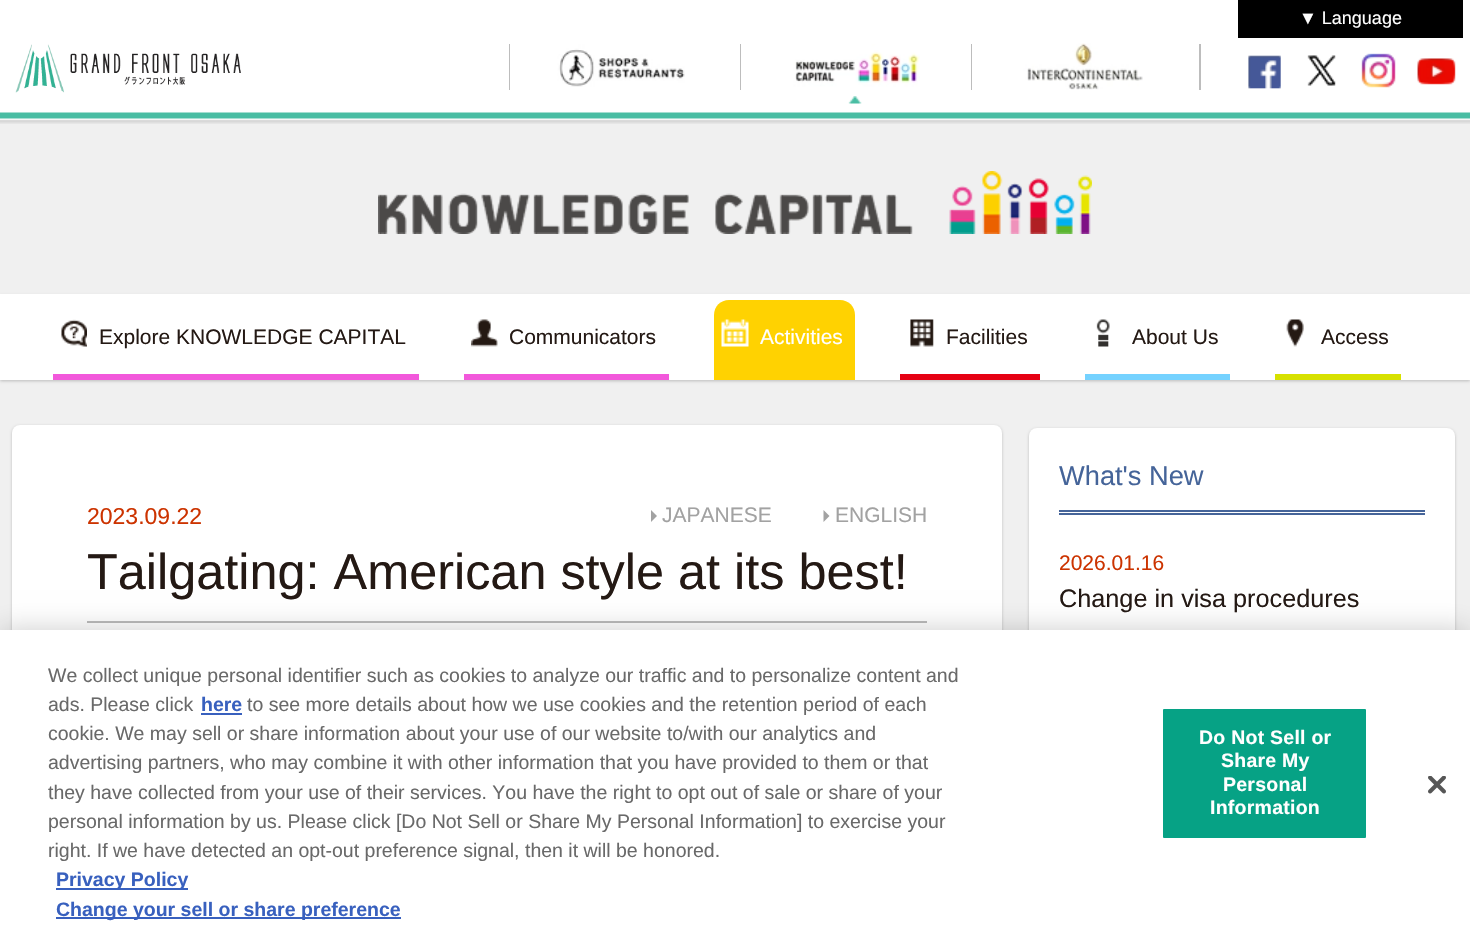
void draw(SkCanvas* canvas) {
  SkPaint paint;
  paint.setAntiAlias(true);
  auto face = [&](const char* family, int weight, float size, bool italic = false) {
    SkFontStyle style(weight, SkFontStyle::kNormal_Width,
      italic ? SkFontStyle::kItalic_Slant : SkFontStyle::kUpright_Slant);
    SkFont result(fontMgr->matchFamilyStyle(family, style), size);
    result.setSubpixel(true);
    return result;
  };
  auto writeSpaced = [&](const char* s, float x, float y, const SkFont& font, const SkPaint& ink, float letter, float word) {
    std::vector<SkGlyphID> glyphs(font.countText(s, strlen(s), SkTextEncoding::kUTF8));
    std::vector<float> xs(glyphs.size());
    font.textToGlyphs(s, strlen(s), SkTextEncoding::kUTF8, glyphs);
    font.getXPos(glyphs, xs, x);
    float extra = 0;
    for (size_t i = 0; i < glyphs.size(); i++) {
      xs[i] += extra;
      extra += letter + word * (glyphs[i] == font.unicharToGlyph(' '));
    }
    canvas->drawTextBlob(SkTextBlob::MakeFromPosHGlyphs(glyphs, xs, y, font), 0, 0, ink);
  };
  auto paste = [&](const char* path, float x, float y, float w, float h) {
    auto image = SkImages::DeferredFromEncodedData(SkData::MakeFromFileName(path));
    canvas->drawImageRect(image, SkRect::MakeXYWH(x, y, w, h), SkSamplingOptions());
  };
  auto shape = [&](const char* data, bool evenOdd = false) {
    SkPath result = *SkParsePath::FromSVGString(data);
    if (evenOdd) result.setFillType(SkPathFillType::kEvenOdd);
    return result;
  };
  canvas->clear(0xfff0f0f0);
  paste("img/1.png", 0, 0, 1470, 124);
  paint.setColor(0xff000000);
  canvas->drawRect(SkRect::MakeXYWH(1238, 0, 225, 38), paint);
  paste("img/2.png", 15, 44, 226, 49);
  paint.setColor(0xffbdbdbd);
  canvas->drawRect(SkRect::MakeXYWH(509, 44, 1, 46), paint);
  paste("img/3.png", 510, 44, 175, 46);
  paste("img/4.png", 848, 96, 14, 8);
  canvas->drawRect(SkRect::MakeXYWH(740, 44, 1, 46), paint);
  paste("img/5.png", 741, 44, 179, 46);
  canvas->drawRect(SkRect::MakeXYWH(971, 44, 1, 46), paint);
  paste("img/6.png", 972, 43, 171, 47);
  canvas->drawRect(SkRect::MakeXYWH(1199, 44, 2, 46), paint);
  paste("img/7.png", 1248, 55, 33, 34);
  paste("img/8.png", 1307, 55, 29, 31);
  paste("img/9.png", 1361, 53, 35, 35);
  paste("img/10.png", 1417, 58, 39, 27);
  paste("img/11.png", 378, 171, 714, 63);
  paint.setColor(0x38000000);
  paint.setMaskFilter(SkMaskFilter::MakeBlur(kNormal_SkBlurStyle, 1.5f));
  canvas->drawRect(SkRect::MakeXYWH(0, 296, 1470, 85), paint);
  paint.setMaskFilter(nullptr);
  paint.setColor(0xffffffff);
  canvas->drawRect(SkRect::MakeXYWH(0, 294, 1470, 86), paint);
  paint.setColor(0xfff258db);
  canvas->drawRect(SkRect::MakeXYWH(53, 374, 366, 6), paint);
  paste("img/12.png", 61, 319, 26, 28);
  canvas->drawRect(SkRect::MakeXYWH(464, 374, 205, 6), paint);
  paste("img/13.png", 471, 319, 27, 28);
  paint.setColor(0xffffd201);
  canvas->drawPath(shape("M729 300H840C848.5 300 855 306.5 855 315V380H714V315C714 306.5 720.5 300 729 300Z"), paint);
  paste("img/14.png", 721, 319, 28, 28);
  paint.setColor(0xffe60114);
  canvas->drawRect(SkRect::MakeXYWH(900, 374, 140, 6), paint);
  paste("img/15.png", 910, 319, 24, 28);
  paint.setColor(0xff75d2ff);
  canvas->drawRect(SkRect::MakeXYWH(1085, 374, 145, 6), paint);
  paste("img/16.png", 1096, 319, 14, 28);
  paint.setColor(0xffd7e100);
  canvas->drawRect(SkRect::MakeXYWH(1275, 374, 126, 6), paint);
  paste("img/17.png", 1286, 319, 18, 28);
  paint.setColor(0x38000000);
  paint.setMaskFilter(SkMaskFilter::MakeBlur(kNormal_SkBlurStyle, 1.5f));
  canvas->drawRoundRect(SkRect::MakeXYWH(12, 426, 990, 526), 8, 8, paint);
  paint.setMaskFilter(nullptr);
  paint.setColor(0xffffffff);
  canvas->drawRoundRect(SkRect::MakeXYWH(12, 425, 990, 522), 8, 8, paint);
  paint.setColor(0xffbbbbbb);
  canvas->drawRect(SkRect::MakeXYWH(87, 621, 840, 2), paint);
  paint.setColor(0xffa2a2a2);
  canvas->drawPath(shape("M651 522V510L657 516Z"), paint);
  canvas->drawPath(shape("M823.5 522V510L829.5 516Z"), paint);
  paint.setColor(0x38000000);
  paint.setMaskFilter(SkMaskFilter::MakeBlur(kNormal_SkBlurStyle, 1.5f));
  canvas->drawRoundRect(SkRect::MakeXYWH(1029, 429, 426, 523), 8, 8, paint);
  paint.setMaskFilter(nullptr);
  paint.setColor(0xffffffff);
  canvas->drawRoundRect(SkRect::MakeXYWH(1029, 428, 426, 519), 8, 8, paint);
  paint.setColor(0xff456499);
  canvas->drawRect(SkRect::MakeXYWH(1059, 510, 366, 2), paint);
  canvas->drawRect(SkRect::MakeXYWH(1059, 513, 366, 2), paint);
  paint.setColor(0x33000000);
  paint.setMaskFilter(SkMaskFilter::MakeBlur(kNormal_SkBlurStyle, 13.5f));
  canvas->drawRect(SkRect::MakeXYWH(0, 630, 1470, 309), paint);
  paint.setMaskFilter(nullptr);
  {
    const struct { float x, y, w, h; SkColor color; } items[] = {
      {0, 630, 1470, 309, 0xffffffff},
      {201, 713, 41, 2, 0xff3860be},
      {56, 888, 132, 2, 0xff3860be},
      {56, 917, 345, 2, 0xff3860be},
    };
    for (auto [x, y, w, h, color] : items) {
      paint.setColor(color);
      canvas->drawRect(SkRect::MakeXYWH(x, y, w, h), paint);
    }
  }
  paint.setColor(0xff06a285);
  canvas->drawRoundRect(SkRect::MakeXYWH(1162, 708, 205, 131), 2, 2, paint);
  paint.setStroke(true);
  paint.setStrokeWidth(2);
  paint.setColor(0xffffffff);
  canvas->drawRoundRect(SkRect::MakeXYWH(1162, 708, 205, 131), 2, 2, paint);
  paste("img/18.png", 1428, 776, 18, 18);
  auto f0 = face("Liberation Sans", 400, 18);
  paint.setStroke(false);
  canvas->drawString("▼ Language", 1299, 24, f0, paint);
  auto f1 = face("Liberation Sans", 400, 21);
  paint.setColor(0xff241914);
  canvas->drawString("Explore KNOWLEDGE CAPITAL", 99, 344, f1, paint);
  canvas->drawString("Communicators", 509, 344, f1, paint);
  paint.setColor(0xffffffff);
  canvas->drawString("Activities", 760, 344, f1, paint);
  paint.setColor(0xff241914);
  {
    const struct { const char* s; float x, y; } items[] = {
      {"Facilities", 946, 344},
      {"About Us", 1132, 344},
      {"Access", 1321, 344},
    };
    for (auto [s, x, y] : items) {
      canvas->drawString(s, x, y, f1, paint);
    }
  }
  auto f2 = face("Liberation Sans", 400, 23);
  paint.setColor(0xffcc3300);
  canvas->drawString("2023.09.22", 87, 524, f2, paint);
  auto f3 = face("Liberation Sans", 400, 50.4f);
  paint.setColor(0xff241914);
  canvas->drawString("Tailgating: American style at its best!", 87, 589, f3, paint);
  paint.setColor(0xffa2a2a2);
  canvas->drawString("JAPANESE", 662, 522, f1, paint);
  canvas->drawString("ENGLISH", 835, 522, f1, paint);
  auto f4 = face("Liberation Sans", 400, 27.25f);
  paint.setColor(0xff456499);
  canvas->drawString("What's New", 1059, 485, f4, paint);
  paint.setColor(0xffcc3300);
  canvas->drawString("2026.01.16", 1059, 570, f1, paint);
  auto f5 = face("Liberation Sans", 400, 25.25f);
  paint.setColor(0xff241914);
  canvas->drawString("Change in visa procedures", 1059, 607, f5, paint);
  auto f6 = face("Liberation Sans", 400, 19.5f);
  paint.setColor(0xff696969);
  canvas->drawString("We collect unique personal identifier such as cookies to analyze our traffic and to personalize content and", 48, 682, f6, paint);
  canvas->drawString("ads. Please click", 48, 711, f6, paint);
  auto f7 = face("Liberation Sans", 700, 19.5f);
  paint.setColor(0xff3860be);
  canvas->drawString("here", 201, 711, f7, paint);
  paint.setColor(0xff696969);
  {
    const struct { const char* s; float x, y; } items[] = {
      {"to see more details about how we use cookies and the retention period of each", 247, 711},
      {"cookie. We may sell or share information about your use of our website to/with our analytics and", 48, 740},
      {"advertising partners, who may combine it with other information that you have provided to them or that", 48, 769},
      {"they have collected from your use of their services. You have the right to opt out of sale or share of your", 48, 799},
      {"personal information by us. Please click [Do Not Sell or Share My Personal Information] to exercise your", 48, 828},
      {"right. If we have detected an opt-out preference signal, then it will be honored.", 48, 857},
    };
    for (auto [s, x, y] : items) {
      canvas->drawString(s, x, y, f6, paint);
    }
  }
  paint.setColor(0xff3860be);
  canvas->drawString("Privacy Policy", 56, 886, f7, paint);
  canvas->drawString("Change your sell or share preference", 56, 916, f7, paint);
  paint.setColor(0xffffffff);
  {
    const struct { const char* s; float x, y; } items[] = {
      {"Do Not Sell or", 1199, 744},
      {"Share My", 1221, 767},
      {"Personal", 1223, 791},
      {"Information", 1210, 814},
    };
    for (auto [s, x, y] : items) {
      writeSpaced(s, x, y, f7, paint, 0.25f, 0);
    }
  }
}
